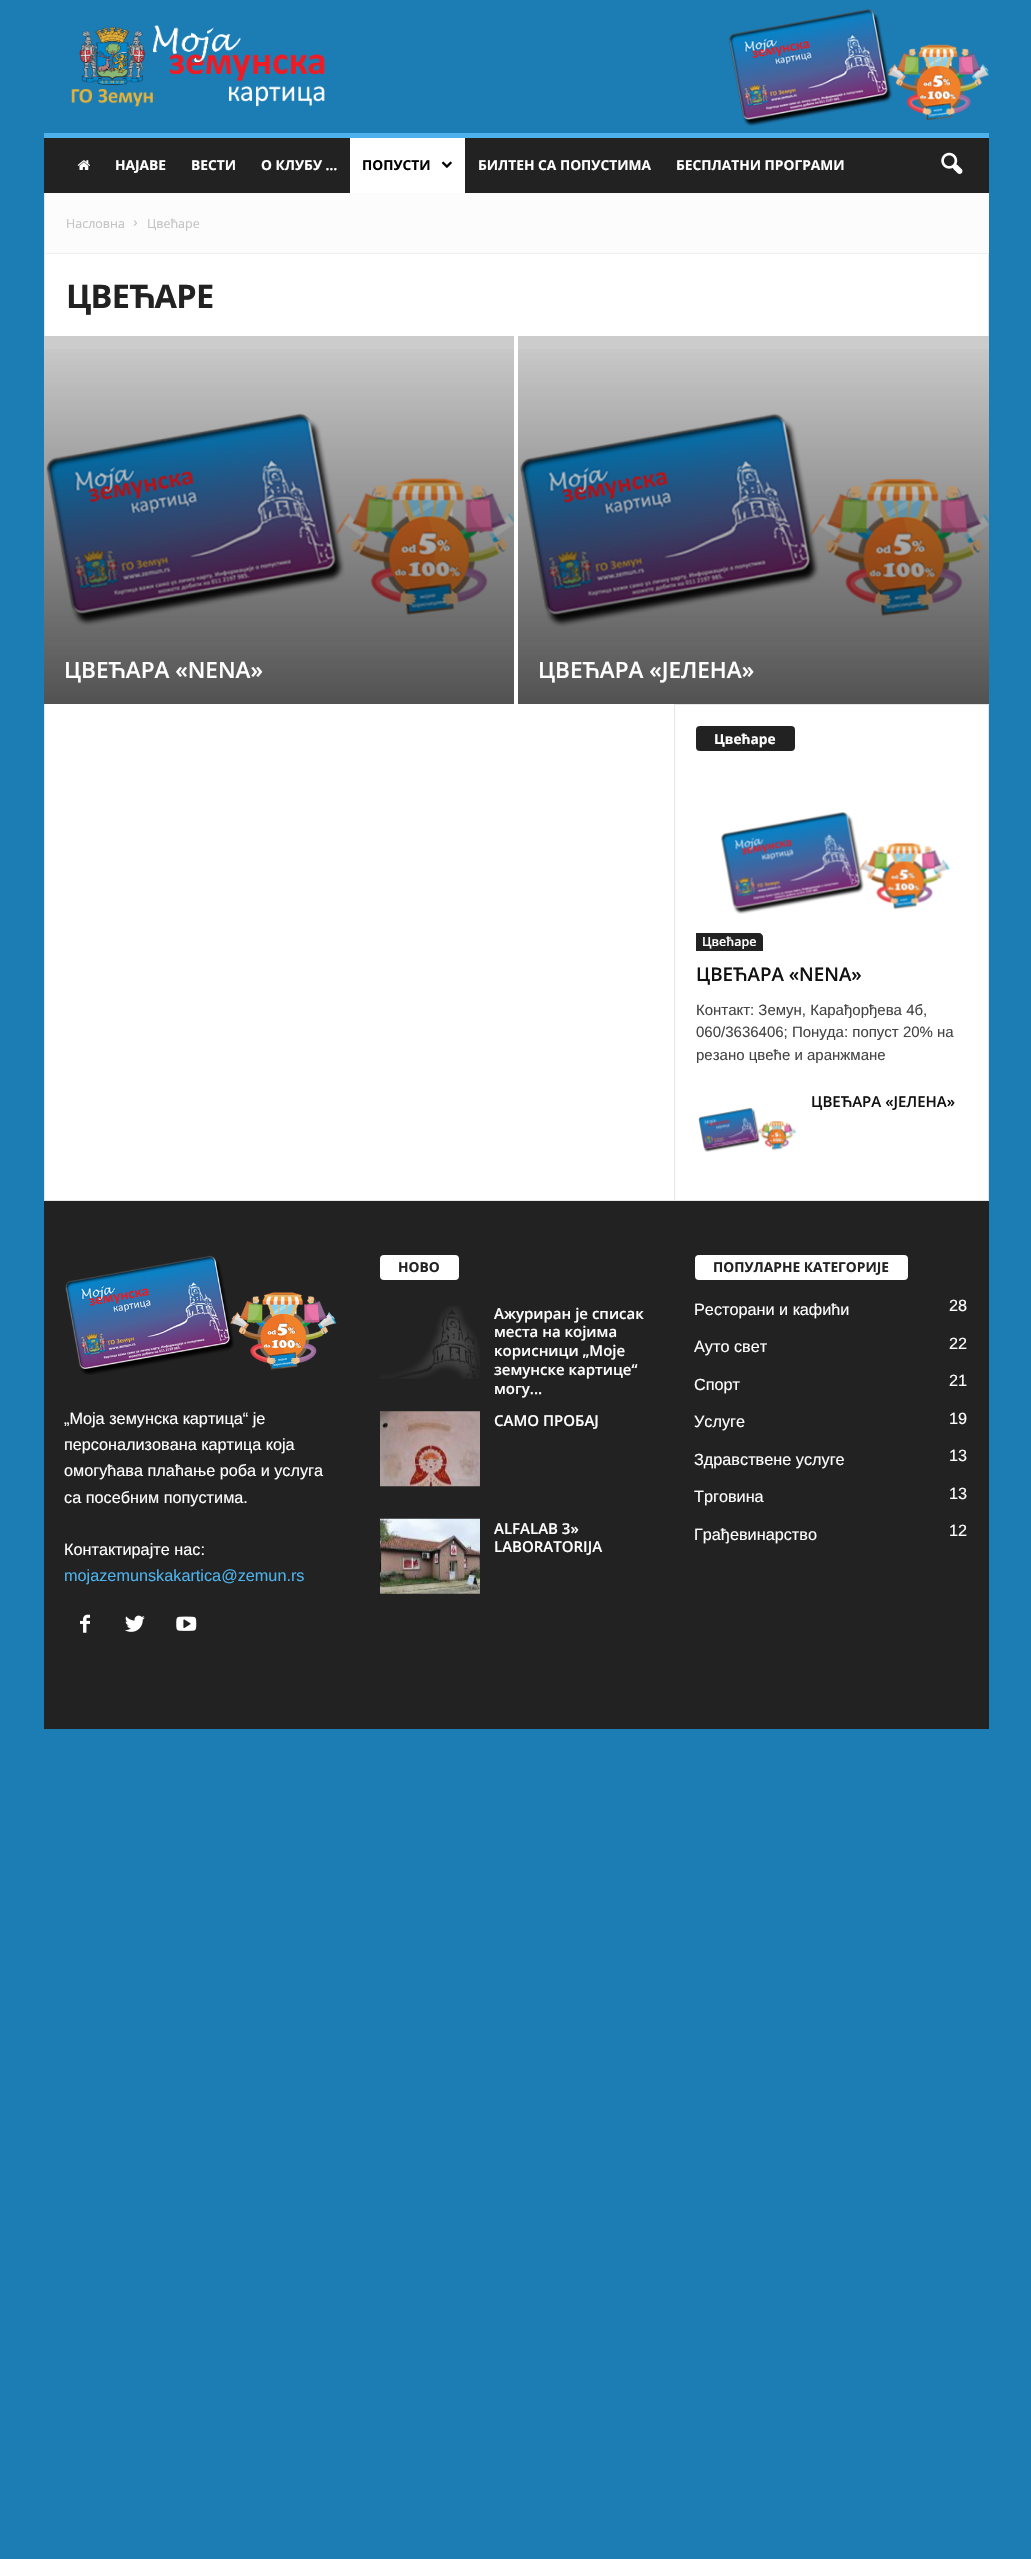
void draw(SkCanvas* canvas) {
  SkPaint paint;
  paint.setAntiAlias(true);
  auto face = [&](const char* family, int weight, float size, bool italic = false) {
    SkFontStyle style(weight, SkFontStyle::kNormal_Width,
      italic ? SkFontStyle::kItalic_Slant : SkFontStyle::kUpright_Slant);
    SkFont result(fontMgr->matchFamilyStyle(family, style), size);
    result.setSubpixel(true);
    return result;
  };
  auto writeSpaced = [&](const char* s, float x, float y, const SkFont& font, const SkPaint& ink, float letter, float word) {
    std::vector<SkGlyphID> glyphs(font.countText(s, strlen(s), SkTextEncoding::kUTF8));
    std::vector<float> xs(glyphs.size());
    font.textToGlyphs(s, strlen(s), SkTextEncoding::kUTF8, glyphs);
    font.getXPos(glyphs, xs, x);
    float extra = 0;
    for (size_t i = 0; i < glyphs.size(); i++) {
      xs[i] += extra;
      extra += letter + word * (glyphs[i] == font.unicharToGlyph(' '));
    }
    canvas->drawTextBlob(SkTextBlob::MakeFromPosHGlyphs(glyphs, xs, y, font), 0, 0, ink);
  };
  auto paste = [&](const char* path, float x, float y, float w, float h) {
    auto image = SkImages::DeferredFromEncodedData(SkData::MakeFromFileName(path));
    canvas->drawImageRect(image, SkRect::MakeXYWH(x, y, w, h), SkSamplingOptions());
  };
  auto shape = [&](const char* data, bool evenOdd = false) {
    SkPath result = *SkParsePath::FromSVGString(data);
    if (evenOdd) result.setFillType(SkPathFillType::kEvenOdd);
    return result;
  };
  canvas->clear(0xff1c7db5);
  paste("img/1.png", 71, 25, 254, 82);
  paste("img/2.png", 728, 9, 261, 117);
  paint.setColor(0xff222222);
  canvas->drawRect(SkRect::MakeXYWH(44, 138, 945, 55), paint);
  paint.setColor(0xff4db2ec);
  canvas->drawRect(SkRect::MakeXYWH(44, 133, 945, 5), paint);
  paste("img/3.png", 77, 160, 13, 10);
  paint.setColor(0xffffffff);
  canvas->drawRect(SkRect::MakeXYWH(350, 138, 115, 55), paint);
  paste("img/4.png", 441, 161, 11, 7);
  paste("img/5.png", 941, 152, 22, 22);
  {
    const struct { float x, y, w, h; SkColor color; } items[] = {
      {44, 253, 945, 1, 0xffefefef},
      {44, 193, 1, 143, 0xffe6e6e6},
      {45, 193, 944, 60, 0xfffcfcfc},
    };
    for (auto [x, y, w, h, color] : items) {
      paint.setColor(color);
      canvas->drawRect(SkRect::MakeXYWH(x, y, w, h), paint);
    }
  }
  paste("img/6.png", 133, 220, 4, 6);
  {
    const struct { float x, y, w, h; SkColor color; } items[] = {
      {988, 254, 1, 82, 0xffe6e6e6},
      {45, 254, 943, 946, 0xffffffff},
      {44, 1200, 945, 1, 0xffe6e6e6},
      {44, 336, 470, 368, 0xffcccccc},
    };
    for (auto [x, y, w, h, color] : items) {
      paint.setColor(color);
      canvas->drawRect(SkRect::MakeXYWH(x, y, w, h), paint);
    }
  }
  paste("img/7.png", 46, 413, 468, 213);
  {
    const SkColor colors[] = {0x00000000, 0x99000000};
    const float stops[] = {0, 1};
    const SkPoint ends[] = {{279, 336}, {279, 704}};
    paint.setShader(SkGradientShader::MakeLinear(ends, colors, stops, 2, SkTileMode::kClamp));
    paint.setAlpha(255);
  }
  canvas->drawRect(SkRect::MakeXYWH(44, 349, 470, 355), paint);
  paint.setShader(nullptr);
  paint.setColor(0xffcccccc);
  canvas->drawRect(SkRect::MakeXYWH(518, 336, 471, 368), paint);
  paste("img/8.png", 520, 413, 469, 214);
  {
    const SkColor colors[] = {0x00000000, 0x99000000};
    const float stops[] = {0, 1};
    const SkPoint ends[] = {{753, 336}, {753, 704}};
    paint.setShader(SkGradientShader::MakeLinear(ends, colors, stops, 2, SkTileMode::kClamp));
    paint.setAlpha(255);
  }
  canvas->drawRect(SkRect::MakeXYWH(518, 349, 471, 355), paint);
  paint.setShader(nullptr);
  {
    const struct { float x, y, w, h; SkColor color; } items[] = {
      {44, 704, 1, 496, 0xffe6e6e6},
      {674, 704, 1, 496, 0xffe6e6e6},
      {675, 704, 314, 1, 0xffe6e6e6},
    };
    for (auto [x, y, w, h, color] : items) {
      paint.setColor(color);
      canvas->drawRect(SkRect::MakeXYWH(x, y, w, h), paint);
    }
  }
  paint.setColor(0xff222222);
  canvas->drawRoundRect(SkRect::MakeXYWH(696, 726, 99, 25), 4, 4, paint);
  paste("img/9.png", 720, 812, 230, 102);
  canvas->drawPath(shape("M696 933H759C761 933 763 935 763 937V951H696Z"), paint);
  paste("img/10.png", 698, 1107, 99, 45);
  paint.setColor(0xffe6e6e6);
  canvas->drawRect(SkRect::MakeXYWH(988, 705, 1, 495), paint);
  paint.setColor(0xff222222);
  canvas->drawRect(SkRect::MakeXYWH(44, 1201, 945, 528), paint);
  paste("img/11.png", 65, 1255, 272, 120);
  paste("img/12.png", 80, 1614, 10, 19);
  paste("img/13.png", 125, 1615, 20, 17);
  paste("img/14.png", 176, 1616, 21, 15);
  paint.setColor(0xffffffff);
  canvas->drawRoundRect(SkRect::MakeXYWH(380, 1255, 79, 25), 4, 4, paint);
  paste("img/15.png", 380, 1306, 100, 73);
  paste("img/16.png", 380, 1411, 100, 76);
  paste("img/17.png", 380, 1518, 100, 76);
  canvas->drawRoundRect(SkRect::MakeXYWH(695, 1255, 213, 25), 4, 4, paint);
  paint.setColor(0xff262626);
  canvas->drawRect(SkRect::MakeXYWH(759, 1436, 1, 1), paint);
  auto f0 = face("Open Sans", 700, 13.75f);
  paint.setColor(0xffffffff);
  {
    const struct { const char* s; float x, y; } items[] = {
      {"НАЈАВЕ", 115, 170},
      {"ВЕСТИ", 191, 170},
      {"О КЛУБУ …", 261, 170},
    };
    for (auto [s, x, y] : items) {
      canvas->drawString(s, x, y, f0, paint);
    }
  }
  paint.setColor(0xff000000);
  canvas->drawString("ПОПУСТИ", 362, 170, f0, paint);
  paint.setColor(0xffffffff);
  canvas->drawString("БИЛТЕН СА ПОПУСТИМА", 478, 170, f0, paint);
  canvas->drawString("БЕСПЛАТНИ ПРОГРАМИ", 676, 170, f0, paint);
  auto f1 = face("Open Sans", 400, 12.5f);
  paint.setColor(0xffc3c3c3);
  canvas->drawString("Насловна", 66, 228, f1, paint);
  canvas->drawString("Цвећаре", 147, 228, f1, paint);
  auto f2 = face("Open Sans", 700, 32.5f);
  paint.setColor(0xff222222);
  writeSpaced("ЦВЕЋАРЕ", 66, 308, f2, paint, -0.75f, 0);
  auto f3 = face("Open Sans", 600, 22.5f);
  paint.setColor(0xffffffff);
  canvas->drawString("ЦВЕЋАРА «NENA»", 64, 678, f3, paint);
  canvas->drawString("ЦВЕЋАРА «ЈЕЛЕНА»", 538, 678, f3, paint);
  canvas->drawString("Цвећаре", 714, 744, f0, paint);
  auto f4 = face("Open Sans", 600, 12.5f);
  canvas->drawString("Цвећаре", 702, 946, f4, paint);
  auto f5 = face("Open Sans", 600, 18.75f);
  paint.setColor(0xff111111);
  canvas->drawString("ЦВЕЋАРА «NENA»", 696, 981, f5, paint);
  auto f6 = face("Liberation Sans", 400, 15);
  paint.setColor(0xff444444);
  {
    const struct { const char* s; float x, y; } items[] = {
      {"Контакт: Земун, Карађорђева 4б,", 696, 1015},
      {"060/3636406; Понуда: попуст 20% на", 696, 1037},
      {"резано цвеће и аранжмане", 696, 1060},
    };
    for (auto [s, x, y] : items) {
      canvas->drawString(s, x, y, f6, paint);
    }
  }
  auto f7 = face("Open Sans", 600, 15);
  paint.setColor(0xff111111);
  canvas->drawString("ЦВЕЋАРА «ЈЕЛЕНА»", 811, 1107, f7, paint);
  auto f8 = face("Liberation Sans", 400, 16.25f);
  paint.setColor(0xffffffff);
  {
    const struct { const char* s; float x, y; } items[] = {
      {"„Моја земунска картица“ је", 64, 1424},
      {"персонализована картица која", 64, 1450},
      {"омогућава плаћање роба и услуга", 64, 1476},
      {"са посебним попустима.", 64, 1503},
      {"Контактирајте нас:", 64, 1555},
    };
    for (auto [s, x, y] : items) {
      canvas->drawString(s, x, y, f8, paint);
    }
  }
  paint.setColor(0xff4db2ec);
  canvas->drawString("mojazemunskakartica@zemun.rs", 64, 1581, f8, paint);
  paint.setColor(0xff222222);
  canvas->drawString("НОВО", 398, 1272, f0, paint);
  paint.setColor(0xffffffff);
  {
    const struct { const char* s; float x, y; } items[] = {
      {"Ажуриран је списак", 494, 1319},
      {"места на којима", 494, 1337},
      {"корисници „Моје", 494, 1356},
      {"земунске картице“", 494, 1375},
      {"могу...", 494, 1394},
      {"САМО ПРОБАЈ", 494, 1426},
      {"ALFALAB 3»", 494, 1534},
      {"LABORATORIJA", 494, 1552},
    };
    for (auto [s, x, y] : items) {
      canvas->drawString(s, x, y, f7, paint);
    }
  }
  paint.setColor(0xff222222);
  canvas->drawString("ПОПУЛАРНЕ КАТЕГОРИЈЕ", 713, 1272, f0, paint);
  paint.setColor(0xffffffff);
  {
    const struct { const char* s; float x, y; } items[] = {
      {"Ресторани и кафићи", 694, 1315},
      {"28", 949, 1311},
      {"Ауто свет", 694, 1352},
      {"22", 949, 1349},
      {"Спорт", 694, 1390},
      {"21", 949, 1386},
      {"Услуге", 694, 1427},
      {"19", 949, 1424},
      {"Здравствене услуге", 694, 1465},
      {"13", 949, 1461},
      {"Трговина", 694, 1502},
      {"13", 949, 1499},
      {"Грађевинарство", 694, 1540},
      {"12", 949, 1536},
    };
    for (auto [s, x, y] : items) {
      canvas->drawString(s, x, y, f8, paint);
    }
  }
}
